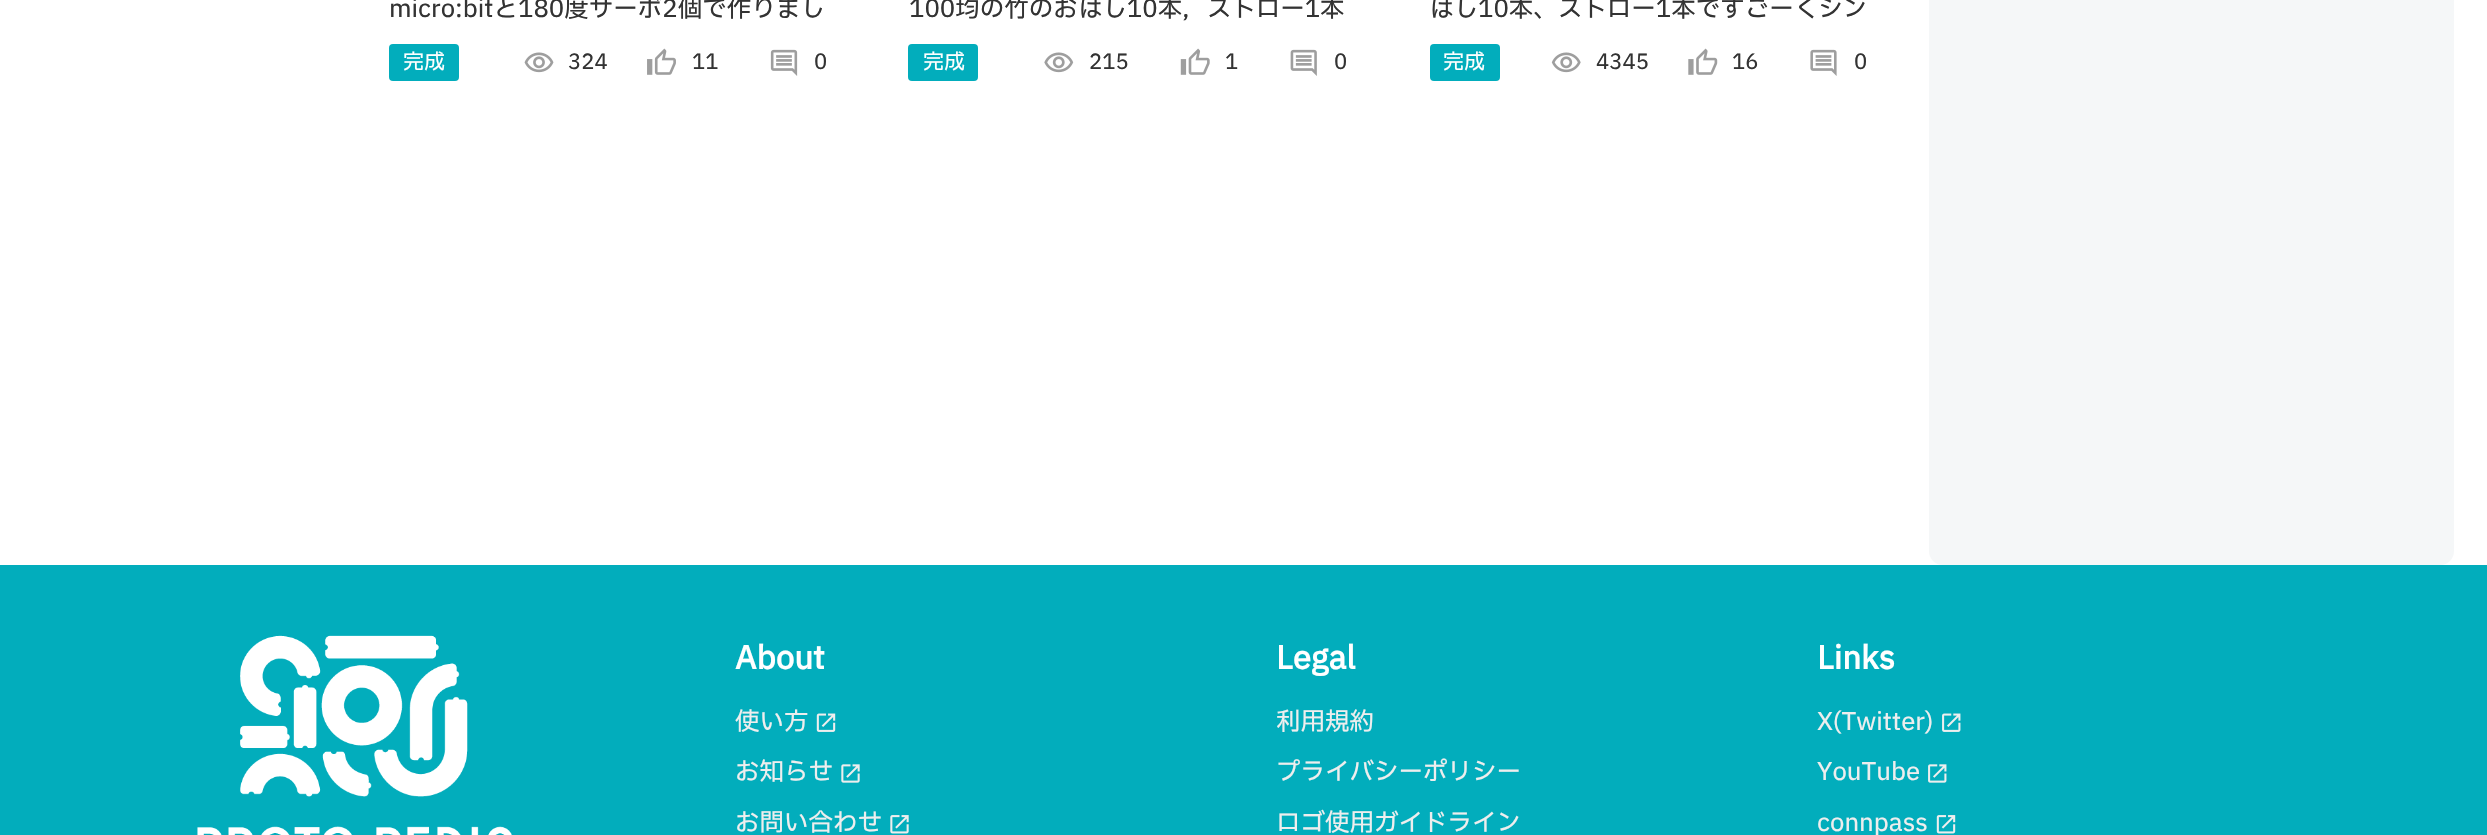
void draw(SkCanvas* canvas) {
  SkPaint paint;
  paint.setAntiAlias(true);
  auto face = [&](const char* family, int weight, float size, bool italic = false) {
    SkFontStyle style(weight, SkFontStyle::kNormal_Width,
      italic ? SkFontStyle::kItalic_Slant : SkFontStyle::kUpright_Slant);
    SkFont result(fontMgr->matchFamilyStyle(family, style), size);
    result.setSubpixel(true);
    return result;
  };
  auto paste = [&](const char* path, float x, float y, float w, float h) {
    auto image = SkImages::DeferredFromEncodedData(SkData::MakeFromFileName(path));
    canvas->drawImageRect(image, SkRect::MakeXYWH(x, y, w, h), SkSamplingOptions());
  };
  canvas->clear(0xffffffff);
  paint.setColor(0xff02adbc);
  canvas->drawRoundRect(SkRect::MakeXYWH(389, 44, 70, 37), 4, 4, paint);
  paste("img/1.png", 524, 52, 30, 21);
  paste("img/2.png", 647, 48, 29, 27);
  paste("img/3.png", 770, 49, 28, 27);
  canvas->drawRoundRect(SkRect::MakeXYWH(908, 44, 70, 37), 4, 4, paint);
  paste("img/4.png", 1044, 52, 30, 21);
  paste("img/5.png", 1180, 48, 30, 27);
  paste("img/6.png", 1290, 49, 27, 27);
  canvas->drawRoundRect(SkRect::MakeXYWH(1430, 44, 70, 37), 4, 4, paint);
  paste("img/7.png", 1551, 52, 30, 21);
  paste("img/8.png", 1688, 48, 30, 27);
  paste("img/9.png", 1810, 49, 27, 27);
  paint.setColor(0xfff5f7f8);
  canvas->drawRoundRect(SkRect::MakeXYWH(1929, -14, 525, 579), 14, 14, paint);
  paint.setColor(0xff02adbc);
  canvas->drawRect(SkRect::MakeXYWH(0, 565, 2487, 270), paint);
  paste("img/10.png", 197, 635, 315, 200);
  paste("img/11.png", 816, 713, 20, 19);
  paste("img/12.png", 841, 764, 19, 19);
  paste("img/13.png", 890, 815, 19, 19);
  paste("img/14.png", 1942, 713, 19, 19);
  paste("img/15.png", 1928, 764, 19, 19);
  paste("img/16.png", 1936, 815, 20, 19);
  auto f0 = face("IBM Plex Sans JP", 400, 24.5f);
  paint.setColor(0xff333333);
  canvas->drawString("micro:bitと180度サーボ2個で作りまし", 389, 17, f0, paint);
  auto f1 = face("IBM Plex Sans JP", 400, 21);
  paint.setColor(0xffffffff);
  canvas->drawString("完成", 403, 69, f1, paint);
  paint.setColor(0xff333333);
  {
    const struct { const char* s; float x, y; } items[] = {
      {"324", 568, 69},
      {"11", 692, 69},
      {"0", 814, 69},
    };
    for (auto [s, x, y] : items) {
      canvas->drawString(s, x, y, f1, paint);
    }
  }
  canvas->drawString("100均の竹のおはし10本，ストロー1本", 909, 17, f0, paint);
  paint.setColor(0xffffffff);
  canvas->drawString("完成", 923, 69, f1, paint);
  paint.setColor(0xff333333);
  {
    const struct { const char* s; float x, y; } items[] = {
      {"215", 1089, 69},
      {"1", 1225, 69},
      {"0", 1334, 69},
    };
    for (auto [s, x, y] : items) {
      canvas->drawString(s, x, y, f1, paint);
    }
  }
  canvas->drawString("はし10本、ストロー1本ですごーくシン", 1429, 17, f0, paint);
  paint.setColor(0xffffffff);
  canvas->drawString("完成", 1443, 69, f1, paint);
  paint.setColor(0xff333333);
  {
    const struct { const char* s; float x, y; } items[] = {
      {"4345", 1596, 69},
      {"16", 1732, 69},
      {"0", 1854, 69},
    };
    for (auto [s, x, y] : items) {
      canvas->drawString(s, x, y, f1, paint);
    }
  }
  auto f2 = face("IBM Plex Sans JP", 700, 31.5f);
  paint.setColor(0xffffffff);
  canvas->drawString("About", 735, 669, f2, paint);
  paint.setColor(0xffeeeeee);
  {
    const struct { const char* s; float x, y; } items[] = {
      {"使い方", 735, 730},
      {"お知らせ", 735, 780},
      {"お問い合わせ", 735, 831},
    };
    for (auto [s, x, y] : items) {
      canvas->drawString(s, x, y, f0, paint);
    }
  }
  paint.setColor(0xffffffff);
  canvas->drawString("Legal", 1276, 669, f2, paint);
  paint.setColor(0xffeeeeee);
  {
    const struct { const char* s; float x, y; } items[] = {
      {"利用規約", 1276, 730},
      {"プライバシーポリシー", 1276, 780},
      {"ロゴ使用ガイドライン", 1276, 831},
    };
    for (auto [s, x, y] : items) {
      canvas->drawString(s, x, y, f0, paint);
    }
  }
  paint.setColor(0xffffffff);
  canvas->drawString("Links", 1817, 669, f2, paint);
  paint.setColor(0xffeeeeee);
  {
    const struct { const char* s; float x, y; } items[] = {
      {"X(Twitter)", 1817, 730},
      {"YouTube", 1817, 780},
      {"connpass", 1817, 831},
    };
    for (auto [s, x, y] : items) {
      canvas->drawString(s, x, y, f0, paint);
    }
  }
}
